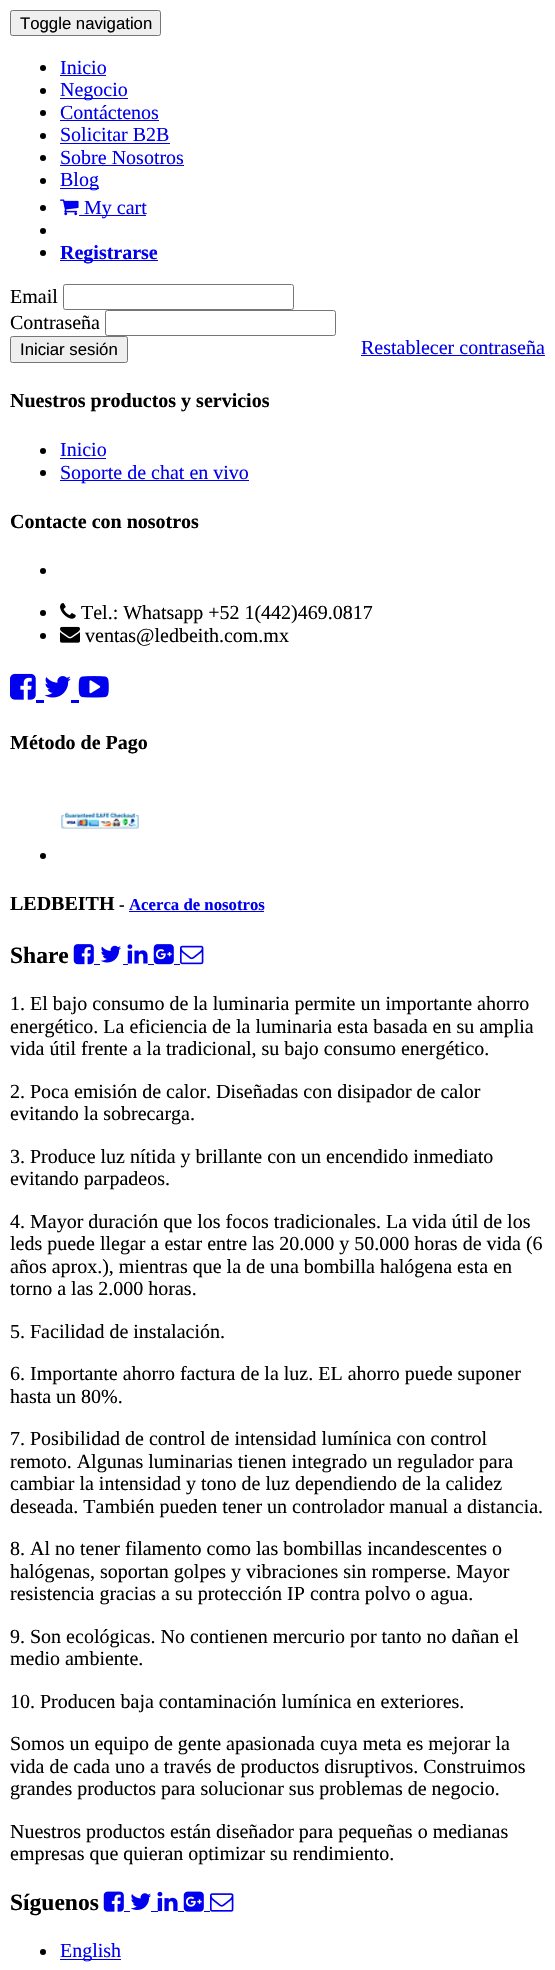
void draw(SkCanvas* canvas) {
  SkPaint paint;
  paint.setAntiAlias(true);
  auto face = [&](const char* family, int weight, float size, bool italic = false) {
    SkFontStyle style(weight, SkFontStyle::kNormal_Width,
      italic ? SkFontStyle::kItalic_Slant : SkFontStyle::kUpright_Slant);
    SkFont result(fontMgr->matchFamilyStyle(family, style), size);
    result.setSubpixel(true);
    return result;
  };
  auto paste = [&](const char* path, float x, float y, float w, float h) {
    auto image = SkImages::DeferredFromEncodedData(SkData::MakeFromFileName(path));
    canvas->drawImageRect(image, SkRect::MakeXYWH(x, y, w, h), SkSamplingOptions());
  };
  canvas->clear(0xffffffff);
  paint.setColor(0xffefefef);
  canvas->drawRoundRect(SkRect::MakeXYWH(10.5f, 10.5f, 150, 25), 2, 2, paint);
  paint.setStroke(true);
  paint.setStrokeWidth(1);
  paint.setColor(0xff767676);
  canvas->drawRoundRect(SkRect::MakeXYWH(10.5f, 10.5f, 150, 25), 2, 2, paint);
  paint.setStroke(false);
  paint.setColor(0xff000000);
  canvas->drawCircle(43, 68, 3, paint);
  paint.setColor(0xff0000ee);
  canvas->drawRect(SkRect::MakeXYWH(60, 75, 46, 1), paint);
  paint.setColor(0xff000000);
  canvas->drawCircle(43, 91, 3, paint);
  paint.setColor(0xff0000ee);
  canvas->drawRect(SkRect::MakeXYWH(60, 98, 68, 1), paint);
  paint.setColor(0xff000000);
  canvas->drawCircle(43, 113, 3, paint);
  paint.setColor(0xff0000ee);
  canvas->drawRect(SkRect::MakeXYWH(60, 120, 99, 1), paint);
  paint.setColor(0xff000000);
  canvas->drawCircle(43, 136, 3, paint);
  paint.setColor(0xff0000ee);
  canvas->drawRect(SkRect::MakeXYWH(60, 143, 110, 1), paint);
  paint.setColor(0xff000000);
  canvas->drawCircle(43, 158, 3, paint);
  paint.setColor(0xff0000ee);
  canvas->drawRect(SkRect::MakeXYWH(60, 165, 124, 1), paint);
  paint.setColor(0xff000000);
  canvas->drawCircle(43, 181, 3, paint);
  paint.setColor(0xff0000ee);
  canvas->drawRect(SkRect::MakeXYWH(60, 188, 39, 1), paint);
  paint.setColor(0xff000000);
  canvas->drawCircle(43, 208, 3, paint);
  paste("img/1.png", 60, 199, 19, 17);
  paint.setColor(0xff0000ee);
  canvas->drawRect(SkRect::MakeXYWH(79, 215, 67, 1), paint);
  paint.setColor(0xff000000);
  canvas->drawCircle(43, 231, 3, paint);
  canvas->drawCircle(43, 253, 3, paint);
  paint.setColor(0xff0000ee);
  canvas->drawRect(SkRect::MakeXYWH(60, 260, 98, 1), paint);
  paint.setStroke(true);
  paint.setColor(0xff767676);
  canvas->drawRoundRect(SkRect::MakeXYWH(63.5f, 284.5f, 230, 25), 2, 2, paint);
  canvas->drawRoundRect(SkRect::MakeXYWH(105.5f, 310.5f, 230, 25), 2, 2, paint);
  paint.setStroke(false);
  paint.setColor(0xffefefef);
  canvas->drawRoundRect(SkRect::MakeXYWH(10.5f, 336.5f, 117, 26), 2, 2, paint);
  paint.setStroke(true);
  paint.setColor(0xff767676);
  canvas->drawRoundRect(SkRect::MakeXYWH(10.5f, 336.5f, 117, 26), 2, 2, paint);
  paint.setStroke(false);
  paint.setColor(0xff0000ee);
  canvas->drawRect(SkRect::MakeXYWH(361, 355, 184, 1), paint);
  paint.setColor(0xff000000);
  canvas->drawCircle(43, 451, 3, paint);
  paint.setColor(0xff0000ee);
  canvas->drawRect(SkRect::MakeXYWH(60, 458, 46, 1), paint);
  paint.setColor(0xff000000);
  canvas->drawCircle(43, 473, 3, paint);
  paint.setColor(0xff0000ee);
  canvas->drawRect(SkRect::MakeXYWH(60, 480, 189, 1), paint);
  paint.setColor(0xff000000);
  canvas->drawCircle(43, 571, 3, paint);
  canvas->drawCircle(43, 613, 3, paint);
  paste("img/2.png", 60, 603, 16, 16);
  canvas->drawCircle(43, 636, 3, paint);
  paste("img/3.png", 60, 626, 20, 17);
  paste("img/4.png", 10, 673, 26, 27);
  paint.setColor(0xff0000ee);
  canvas->drawRect(SkRect::MakeXYWH(36, 700, 8, 3), paint);
  paste("img/5.png", 44, 676, 27, 22);
  canvas->drawRect(SkRect::MakeXYWH(71, 700, 8, 3), paint);
  paste("img/6.png", 78, 676, 31, 22);
  paste("img/7.png", 61, 812, 78, 17);
  paint.setColor(0xff000000);
  canvas->drawCircle(43, 856, 3, paint);
  paint.setColor(0xff0000ee);
  canvas->drawRect(SkRect::MakeXYWH(129, 911, 135, 1), paint);
  paste("img/8.png", 73, 944, 21, 21);
  canvas->drawRect(SkRect::MakeXYWH(94, 964, 6, 1), paint);
  paste("img/9.png", 100, 945, 21, 18);
  canvas->drawRect(SkRect::MakeXYWH(123, 964, 5, 1), paint);
  paste("img/10.png", 127, 944, 21, 20);
  canvas->drawRect(SkRect::MakeXYWH(148, 964, 6, 1), paint);
  paste("img/11.png", 153, 944, 21, 21);
  canvas->drawRect(SkRect::MakeXYWH(174, 964, 6, 1), paint);
  paste("img/12.png", 180, 945, 24, 20);
  paste("img/13.png", 103, 1891, 21, 21);
  canvas->drawRect(SkRect::MakeXYWH(124, 1911, 6, 1), paint);
  paste("img/14.png", 130, 1893, 21, 17);
  canvas->drawRect(SkRect::MakeXYWH(151, 1911, 7, 1), paint);
  paste("img/15.png", 157, 1891, 21, 21);
  canvas->drawRect(SkRect::MakeXYWH(178, 1911, 6, 1), paint);
  paste("img/16.png", 183, 1891, 21, 21);
  canvas->drawRect(SkRect::MakeXYWH(204, 1911, 6, 1), paint);
  paste("img/17.png", 210, 1893, 24, 19);
  paint.setColor(0xff000000);
  canvas->drawCircle(43, 1952, 3, paint);
  paint.setColor(0xff0000ee);
  canvas->drawRect(SkRect::MakeXYWH(60, 1959, 61, 1), paint);
  auto f0 = face("Liberation Sans", 400, 16.75f);
  paint.setColor(0xff000000);
  canvas->drawString("Toggle navigation", 20, 29, f0, paint);
  auto f1 = face("Liberation Serif", 400, 20);
  paint.setColor(0xff0000ee);
  {
    const struct { const char* s; float x, y; } items[] = {
      {"Inicio", 60, 74},
      {"Negocio", 60, 96},
      {"Contáctenos", 60, 119},
      {"Solicitar B2B", 60, 141},
      {"Sobre Nosotros", 60, 164},
      {"Blog", 60, 186},
      {"My cart", 84, 214},
    };
    for (auto [s, x, y] : items) {
      canvas->drawString(s, x, y, f1, paint);
    }
  }
  auto f2 = face("Liberation Serif", 700, 20);
  canvas->drawString("Registrarse", 60, 259, f2, paint);
  paint.setColor(0xff000000);
  canvas->drawString("Email", 10, 303, f1, paint);
  canvas->drawString("Contraseña", 10, 329, f1, paint);
  canvas->drawString("Iniciar sesión", 20, 355, f0, paint);
  paint.setColor(0xff0000ee);
  canvas->drawString("Restablecer contraseña", 361, 354, f1, paint);
  paint.setColor(0xff000000);
  canvas->drawString("Nuestros productos y servicios", 10, 407, f2, paint);
  paint.setColor(0xff0000ee);
  canvas->drawString("Inicio", 60, 456, f1, paint);
  canvas->drawString("Soporte de chat en vivo", 60, 479, f1, paint);
  paint.setColor(0xff000000);
  canvas->drawString("Contacte con nosotros", 10, 528, f2, paint);
  canvas->drawString("Tel.: Whatsapp +52 1(442)469.0817", 81, 619, f1, paint);
  canvas->drawString("ventas@ledbeith.com.mx", 85, 642, f1, paint);
  canvas->drawString("Método de Pago", 10, 749, f2, paint);
  canvas->drawString("LEDBEITH", 10, 910, f2, paint);
  auto f3 = face("Liberation Serif", 700, 16.75f);
  canvas->drawString("-", 119, 910, f3, paint);
  paint.setColor(0xff0000ee);
  canvas->drawString("Acerca de nosotros", 129, 910, f3, paint);
  auto f4 = face("Liberation Serif", 700, 23.5f);
  paint.setColor(0xff000000);
  canvas->drawString("Share", 10, 963, f4, paint);
  {
    const struct { const char* s; float x, y; } items[] = {
      {"1. El bajo consumo de la luminaria permite un importante ahorro", 10, 1010},
      {"energético. La eficiencia de la luminaria esta basada en su amplia", 10, 1033},
      {"vida útil frente a la tradicional, su bajo consumo energético.", 10, 1055},
      {"2. Poca emisión de calor. Diseñadas con disipador de calor", 10, 1098},
      {"evitando la sobrecarga.", 10, 1120},
      {"3. Produce luz nítida y brillante con un encendido inmediato", 10, 1163},
      {"evitando parpadeos.", 10, 1185},
      {"4. Mayor duración que los focos tradicionales. La vida útil de los", 10, 1228},
      {"leds puede llegar a estar entre las 20.000 y 50.000 horas de vida (6", 10, 1250},
      {"años aprox.), mientras que la de una bombilla halógena esta en", 10, 1273},
      {"torno a las 2.000 horas.", 10, 1295},
      {"5. Facilidad de instalación.", 10, 1338},
      {"6. Importante ahorro factura de la luz. EL ahorro puede suponer", 10, 1380},
      {"hasta un 80%.", 10, 1403},
      {"7. Posibilidad de control de intensidad lumínica con control", 10, 1445},
      {"remoto. Algunas luminarias tienen integrado un regulador para", 10, 1468},
      {"cambiar la intensidad y tono de luz dependiendo de la calidez", 10, 1490},
      {"deseada. También pueden tener un controlador manual a distancia.", 10, 1513},
      {"8. Al no tener filamento como las bombillas incandescentes o", 10, 1555},
      {"halógenas, soportan golpes y vibraciones sin romperse. Mayor", 10, 1578},
      {"resistencia gracias a su protección IP contra polvo o agua.", 10, 1600},
      {"9. Son ecológicas. No contienen mercurio por tanto no dañan el", 10, 1643},
      {"medio ambiente.", 10, 1665},
      {"10. Producen baja contaminación lumínica en exteriores.", 10, 1708},
      {"Somos un equipo de gente apasionada cuya meta es mejorar la", 10, 1750},
      {"vida de cada uno a través de productos disruptivos. Construimos", 10, 1773},
      {"grandes productos para solucionar sus problemas de negocio.", 10, 1795},
      {"Nuestros productos están diseñador para pequeñas o medianas", 10, 1838},
      {"empresas que quieran optimizar su rendimiento.", 10, 1860},
    };
    for (auto [s, x, y] : items) {
      canvas->drawString(s, x, y, f1, paint);
    }
  }
  canvas->drawString("Síguenos", 10, 1910, f4, paint);
  paint.setColor(0xff0000ee);
  canvas->drawString("English", 60, 1957, f1, paint);
}
